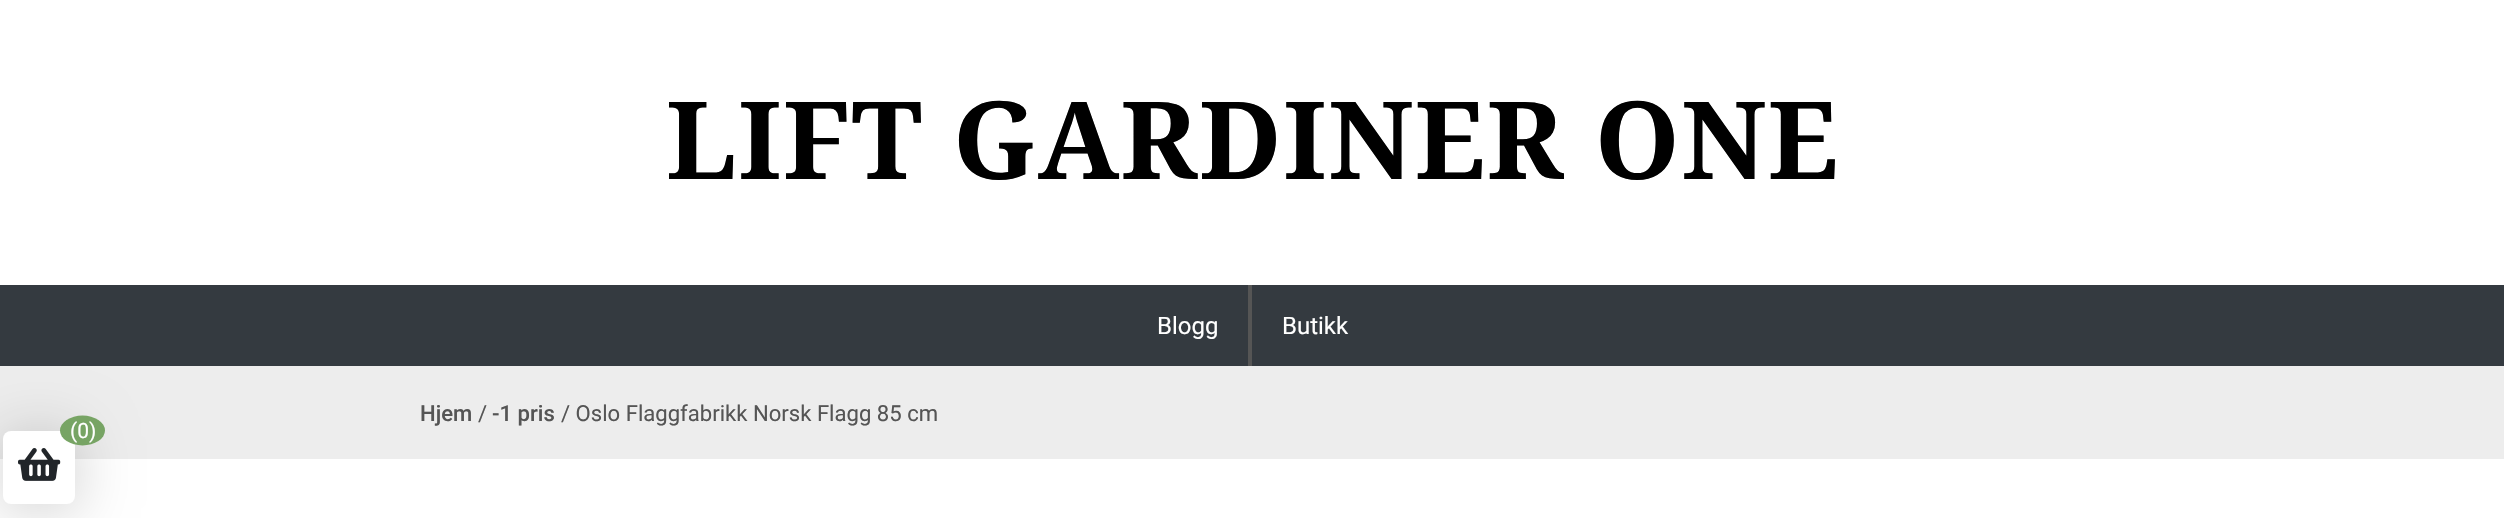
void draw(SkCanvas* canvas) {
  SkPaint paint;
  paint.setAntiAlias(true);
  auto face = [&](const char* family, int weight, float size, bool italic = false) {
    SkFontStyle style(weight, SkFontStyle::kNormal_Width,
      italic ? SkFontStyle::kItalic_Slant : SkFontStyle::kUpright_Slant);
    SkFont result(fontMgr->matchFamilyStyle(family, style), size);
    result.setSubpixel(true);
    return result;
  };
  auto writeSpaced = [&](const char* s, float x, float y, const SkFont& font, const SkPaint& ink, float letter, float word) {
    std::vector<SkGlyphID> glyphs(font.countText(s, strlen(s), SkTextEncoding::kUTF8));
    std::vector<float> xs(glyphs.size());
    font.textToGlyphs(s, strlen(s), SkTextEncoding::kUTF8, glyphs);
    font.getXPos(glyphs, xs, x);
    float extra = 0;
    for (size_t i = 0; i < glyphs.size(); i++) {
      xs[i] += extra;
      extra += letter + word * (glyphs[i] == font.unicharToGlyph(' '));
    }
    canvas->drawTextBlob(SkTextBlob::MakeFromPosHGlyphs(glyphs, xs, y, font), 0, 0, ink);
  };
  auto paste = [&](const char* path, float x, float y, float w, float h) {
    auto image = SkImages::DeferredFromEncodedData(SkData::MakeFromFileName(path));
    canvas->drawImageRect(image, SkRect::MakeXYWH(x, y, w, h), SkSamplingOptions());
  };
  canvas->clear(0xffffffff);
  {
    const struct { float x, y, w, h; SkColor color; } items[] = {
      {0, 285, 2504, 81, 0xff343a40},
      {1248, 285, 4, 81, 0xff555555},
      {0, 366, 2504, 93, 0xffededed},
    };
    for (auto [x, y, w, h, color] : items) {
      paint.setColor(color);
      canvas->drawRect(SkRect::MakeXYWH(x, y, w, h), paint);
    }
  }
  paint.setColor(0x33000000);
  paint.setMaskFilter(SkMaskFilter::MakeBlur(kNormal_SkBlurStyle, 30));
  canvas->drawRoundRect(SkRect::MakeXYWH(3, 435, 72, 74), 8, 8, paint);
  paint.setMaskFilter(nullptr);
  paint.setColor(0xffffffff);
  canvas->drawRoundRect(SkRect::MakeXYWH(3, 431, 72, 73), 8, 8, paint);
  paint.setColor(0xff77a464);
  canvas->drawOval(SkRect::MakeXYWH(60, 415.5f, 45, 30), paint);
  paste("img/1.png", 18, 448, 43, 33);
  auto f0 = face("Noto Serif", 700, 108);
  paint.setColor(0xff000000);
  writeSpaced("LIFT GARDINER ONE", 666, 179, f0, paint, 1.5f, 0);
  auto f1 = face("Roboto", 400, 24);
  paint.setColor(0xffffffff);
  canvas->drawString("Blogg", 1157, 334, f1, paint);
  canvas->drawString("Butikk", 1282, 334, f1, paint);
  auto f2 = face("Roboto", 500, 22.1f);
  paint.setColor(0xff555555);
  canvas->drawString("Hjem", 420, 421, f2, paint);
  auto f3 = face("Roboto", 400, 22.1f);
  canvas->drawString("/", 478, 421, f3, paint);
  canvas->drawString("-1 pris", 492, 421, f2, paint);
  canvas->drawString("/ Oslo Flaggfabrikk Norsk Flagg 85 cm", 561, 421, f3, paint);
  auto f4 = face("Roboto", 400, 21);
  paint.setColor(0xffffffff);
  canvas->drawString("(0)", 70, 438, f4, paint);
}
